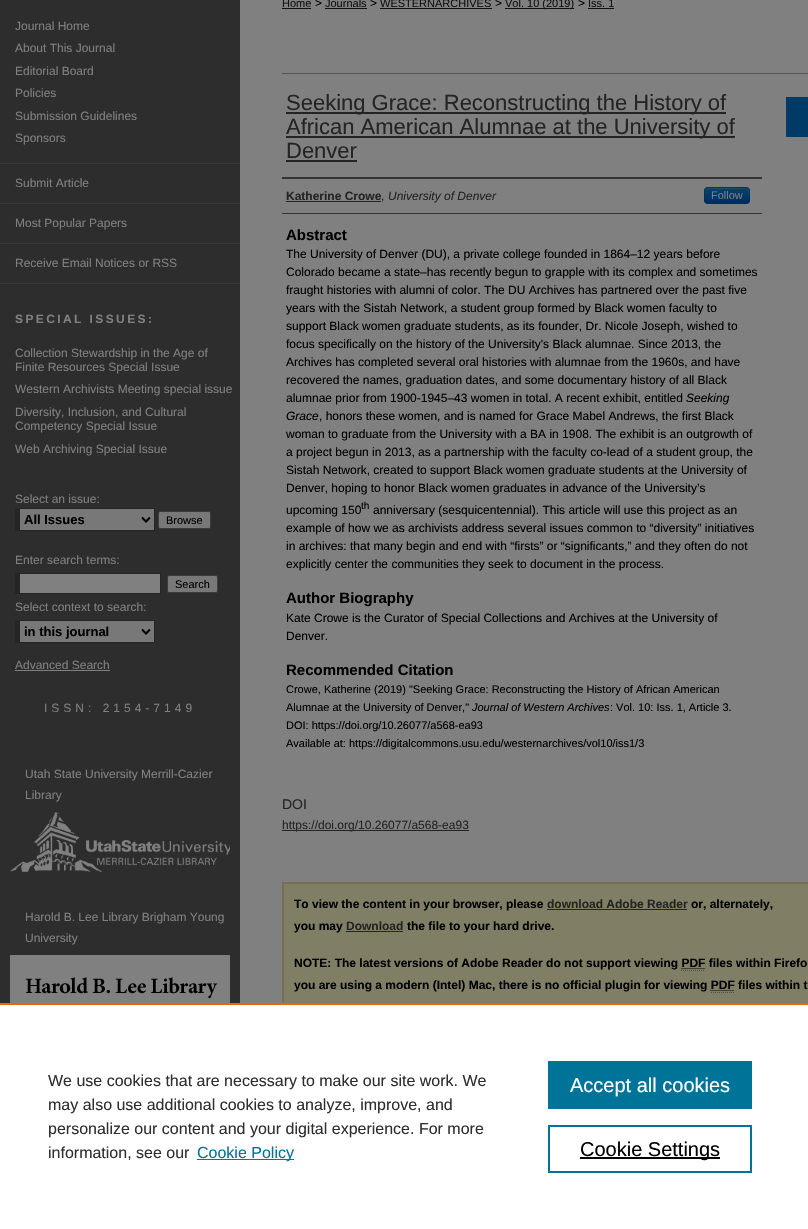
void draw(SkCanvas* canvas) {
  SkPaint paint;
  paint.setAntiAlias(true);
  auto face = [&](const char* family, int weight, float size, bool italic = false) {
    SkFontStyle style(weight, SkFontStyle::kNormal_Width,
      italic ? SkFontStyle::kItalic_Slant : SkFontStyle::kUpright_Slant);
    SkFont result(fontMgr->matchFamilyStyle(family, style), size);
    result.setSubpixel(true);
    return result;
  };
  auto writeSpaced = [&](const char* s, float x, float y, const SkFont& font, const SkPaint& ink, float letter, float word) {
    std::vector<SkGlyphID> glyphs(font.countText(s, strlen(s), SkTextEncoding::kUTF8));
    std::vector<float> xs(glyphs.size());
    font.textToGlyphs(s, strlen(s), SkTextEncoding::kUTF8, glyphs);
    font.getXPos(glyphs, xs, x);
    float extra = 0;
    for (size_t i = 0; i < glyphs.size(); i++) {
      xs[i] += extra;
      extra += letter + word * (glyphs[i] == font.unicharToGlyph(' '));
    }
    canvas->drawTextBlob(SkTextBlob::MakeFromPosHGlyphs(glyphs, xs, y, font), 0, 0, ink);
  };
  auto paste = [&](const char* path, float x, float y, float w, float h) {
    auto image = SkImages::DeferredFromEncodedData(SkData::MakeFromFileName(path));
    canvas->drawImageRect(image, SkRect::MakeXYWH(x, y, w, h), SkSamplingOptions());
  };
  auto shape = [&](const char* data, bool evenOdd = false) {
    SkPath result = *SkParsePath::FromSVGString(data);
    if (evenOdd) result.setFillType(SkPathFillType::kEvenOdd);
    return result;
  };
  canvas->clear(0xff2d2d2d);
  {
    const struct { float x, y, w, h; SkColor color; } items[] = {
      {240, 0, 568, 1003, 0xff808080},
      {0, 163, 240, 1, 0xff383736},
      {0, 203, 240, 1, 0xff383736},
      {0, 243, 240, 1, 0xff383736},
      {0, 283, 240, 1, 0xff383736},
      {20, 509, 134, 21, 0xff787878},
      {15, 508, 140, 1, 0xff252525},
      {154, 508, 1, 23, 0xff252525},
      {15, 530, 140, 1, 0xff252525},
      {15, 508, 5, 23, 0xff252525},
    };
    for (auto [x, y, w, h, color] : items) {
      paint.setColor(color);
      canvas->drawRect(SkRect::MakeXYWH(x, y, w, h), paint);
    }
  }
  paint.setStroke(true);
  paint.setStrokeWidth(2);
  paint.setColor(0xff000000);
  canvas->drawPath(shape("M142 517.5L146 521.5L150 517.5"), paint);
  paint.setStroke(false);
  paint.setColor(0xff787878);
  canvas->drawRoundRect(SkRect::MakeXYWH(158.5f, 511.5f, 52, 17), 1.5f, 1.5f, paint);
  paint.setStroke(true);
  paint.setStrokeWidth(1);
  paint.setColor(0xff3b3b3b);
  canvas->drawRoundRect(SkRect::MakeXYWH(158.5f, 511.5f, 52, 17), 1.5f, 1.5f, paint);
  paint.setStroke(false);
  {
    const struct { float x, y, w, h; SkColor color; } items[] = {
      {20, 574, 140, 19, 0xff808080},
      {15, 573, 146, 1, 0xff252525},
      {160, 573, 1, 21, 0xff252525},
      {15, 593, 146, 1, 0xff252525},
      {15, 573, 5, 21, 0xff252525},
    };
    for (auto [x, y, w, h, color] : items) {
      paint.setColor(color);
      canvas->drawRect(SkRect::MakeXYWH(x, y, w, h), paint);
    }
  }
  paint.setColor(0xff787878);
  canvas->drawRoundRect(SkRect::MakeXYWH(167.5f, 575.5f, 50, 17), 1.5f, 1.5f, paint);
  paint.setStroke(true);
  paint.setColor(0xff3b3b3b);
  canvas->drawRoundRect(SkRect::MakeXYWH(167.5f, 575.5f, 50, 17), 1.5f, 1.5f, paint);
  paint.setStroke(false);
  {
    const struct { float x, y, w, h; SkColor color; } items[] = {
      {20, 621, 134, 21, 0xff787878},
      {15, 620, 140, 1, 0xff252525},
      {154, 620, 1, 23, 0xff252525},
      {15, 642, 140, 1, 0xff252525},
      {15, 620, 5, 23, 0xff252525},
    };
    for (auto [x, y, w, h, color] : items) {
      paint.setColor(color);
      canvas->drawRect(SkRect::MakeXYWH(x, y, w, h), paint);
    }
  }
  paint.setStroke(true);
  paint.setStrokeWidth(2);
  paint.setColor(0xff000000);
  canvas->drawPath(shape("M142 629.5L146 633.5L150 629.5"), paint);
  paint.setStroke(false);
  paint.setColor(0xff808080);
  canvas->drawRect(SkRect::MakeXYWH(15, 670, 95, 1), paint);
  paste("img/1.png", 10, 812, 220, 60);
  paste("img/2.png", 10, 955, 220, 48);
  {
    const struct { float x, y, w, h; SkColor color; } items[] = {
      {282, 8, 29, 1, 0xff111111},
      {325, 8, 42, 1, 0xff111111},
      {380, 8, 112, 1, 0xff111111},
      {505, 8, 69, 1, 0xff111111},
      {588, 8, 26, 1, 0xff111111},
      {282, 73, 526, 1, 0xff555555},
      {286, 112, 440, 2, 0xff242424},
      {286, 136, 449, 2, 0xff242424},
      {286, 160, 71, 2, 0xff242424},
      {282, 177, 480, 2, 0xff333333},
      {282, 213, 480, 1, 0xff333333},
      {286, 201, 95, 1, 0xff242424},
    };
    for (auto [x, y, w, h, color] : items) {
      paint.setColor(color);
      canvas->drawRect(SkRect::MakeXYWH(x, y, w, h), paint);
    }
  }
  paint.setColor(0xff003a66);
  canvas->drawRoundRect(SkRect::MakeXYWH(704, 187, 46, 17), 4, 4, paint);
  canvas->save();
  canvas->clipPath(shape("M708 187H746C748 187 750 189 750 191V200C750 202 748 204 746 204H708C706 204 704 202 704 200V191C704 189 706 187 708 187Z"), true);
  {
    const SkColor colors[] = {0xff004466, 0xff002b66};
    const float stops[] = {0, 1};
    const SkPoint ends[] = {{727, 188}, {727, 203}};
    paint.setShader(SkGradientShader::MakeLinear(ends, colors, stops, 2, SkTileMode::kClamp));
    paint.setAlpha(255);
  }
  canvas->drawRect(SkRect::MakeXYWH(704, 188, 46, 15), paint);
  canvas->restore();
  paint.setShader(nullptr);
  paint.setColor(0x33808080);
  canvas->drawPath(shape("M708 189H733C747 189 749 185 749 200C749 189 752 188 740 188H714C707 188 705 187 705 194V201C705 198 704 189 708 189Z"), paint);
  paint.setStroke(true);
  paint.setStrokeWidth(1);
  paint.setColor(0x40000000);
  canvas->drawPath(shape("M748.5 202.5C748 203 747 203.5 746 203.5H708C707 203.5 706 203 705.5 202.5"), paint);
  paint.setColor(0x1a000000);
  canvas->drawPath(shape("M705.5 202.5C704 200.5 704.5 197.5 704.5 195.5C704.5 186.5 705 187.5 714.5 187.5H739.5C749 187.5 749.5 186.5 749.5 195.5C749.5 197.5 750 200.5 748.5 202.5"), paint);
  paint.setStroke(false);
  {
    const struct { float x, y, w, h; SkColor color; } items[] = {
      {786, 97, 22, 40, 0xff003a66},
      {282, 830, 187, 1, 0xff242424},
      {284, 884, 524, 119, 0xff807e65},
    };
    for (auto [x, y, w, h, color] : items) {
      paint.setColor(color);
      canvas->drawRect(SkRect::MakeXYWH(x, y, w, h), paint);
    }
  }
  paint.setStroke(true);
  paint.setStrokeWidth(2);
  paint.setColor(0xff786e51);
  canvas->drawRect(SkRect::MakeXYWH(283, 883, 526, 140), paint);
  paint.setStroke(false);
  paint.setColor(0xff242424);
  canvas->drawRect(SkRect::MakeXYWH(547, 909, 140, 1), paint);
  canvas->drawRect(SkRect::MakeXYWH(346, 931, 57, 1), paint);
  paint.setStroke(true);
  paint.setStrokeWidth(1);
  paint.setColor(0xff000000);
  paint.setPathEffect(SkDashPathEffect::Make({{1, 1}}, 0));
  canvas->drawPath(shape("M681.5 968.5H705.5"), paint);
  paint.setPathEffect(nullptr);
  paint.setColor(0xff4d4d4d);
  paint.setPathEffect(SkDashPathEffect::Make({{1, 1}}, 0));
  canvas->drawPath(shape("M681 970.5H705"), paint);
  paint.setPathEffect(nullptr);
  paint.setColor(0xff000000);
  paint.setPathEffect(SkDashPathEffect::Make({{1, 1}}, 0));
  canvas->drawPath(shape("M710.5 990.5H734.5"), paint);
  paint.setPathEffect(nullptr);
  paint.setColor(0xff4d4d4d);
  paint.setPathEffect(SkDashPathEffect::Make({{1, 1}}, 0));
  canvas->drawPath(shape("M711 992.5H735"), paint);
  paint.setPathEffect(nullptr);
  paint.setStroke(false);
  {
    const struct { float x, y, w, h; SkColor color; } items[] = {
      {0, 1005, 808, 224, 0xffffffff},
      {0, 1003, 808, 2, 0xffeb6500},
      {197, 1159, 97, 1, 0xff007398},
      {548, 1061, 204, 48, 0xff007398},
    };
    for (auto [x, y, w, h, color] : items) {
      paint.setColor(color);
      canvas->drawRect(SkRect::MakeXYWH(x, y, w, h), paint);
    }
  }
  paint.setStroke(true);
  paint.setStrokeWidth(2);
  canvas->drawRect(SkRect::MakeXYWH(549, 1126, 202, 46), paint);
  paint.setStroke(false);
  paint.setColor(0xff000000);
  canvas->drawRect(SkRect::MakeXYWH(580, 1157, 140, 2), paint);
  auto f0 = face("Liberation Sans", 400, 12);
  paint.setColor(0xff808080);
  {
    const struct { const char* s; float x, y; } items[] = {
      {"Journal Home", 15, 30},
      {"About This Journal", 15, 52},
      {"Editorial Board", 15, 75},
      {"Policies", 15, 97},
      {"Submission Guidelines", 15, 120},
      {"Sponsors", 15, 142},
      {"Submit Article", 15, 187},
      {"Most Popular Papers", 15, 227},
      {"Receive Email Notices or RSS", 15, 267},
    };
    for (auto [s, x, y] : items) {
      canvas->drawString(s, x, y, f0, paint);
    }
  }
  auto f1 = face("Liberation Sans", 700, 12);
  writeSpaced("SPECIAL ISSUES:", 15, 323, f1, paint, 2.4f, 0);
  {
    const struct { const char* s; float x, y; } items[] = {
      {"Collection Stewardship in the Age of", 15, 357},
      {"Finite Resources Special Issue", 15, 371},
      {"Western Archivists Meeting special issue", 15, 393},
      {"Diversity, Inclusion, and Cultural", 15, 416},
      {"Competency Special Issue", 15, 430},
      {"Web Archiving Special Issue", 15, 453},
      {"Select an issue:", 15, 503},
    };
    for (auto [s, x, y] : items) {
      canvas->drawString(s, x, y, f0, paint);
    }
  }
  auto f2 = face("Liberation Sans", 700, 13);
  paint.setColor(0xff000000);
  canvas->drawString("All Issues", 24, 524, f2, paint);
  auto f3 = face("Liberation Sans", 400, 11);
  canvas->drawString("Browse", 166, 524, f3, paint);
  paint.setColor(0xff808080);
  canvas->drawString("Enter search terms:", 15, 564, f0, paint);
  paint.setColor(0xff000000);
  canvas->drawString("Search", 175, 588, f3, paint);
  paint.setColor(0xff808080);
  canvas->drawString("Select context to search:", 15, 611, f0, paint);
  paint.setColor(0xff000000);
  canvas->drawString("in this journal", 24, 636, f2, paint);
  paint.setColor(0xff808080);
  canvas->drawString("Advanced Search", 15, 669, f0, paint);
  writeSpaced("ISSN: 2154-7149", 44, 712, f0, paint, 4, 0);
  {
    const struct { const char* s; float x, y; } items[] = {
      {"Utah State University Merrill-Cazier", 25, 778},
      {"Library", 25, 799},
      {"Harold B. Lee Library Brigham Young", 25, 921},
      {"University", 25, 942},
    };
    for (auto [s, x, y] : items) {
      canvas->drawString(s, x, y, f0, paint);
    }
  }
  paint.setColor(0xff111111);
  canvas->drawString("Home", 282, 7, f3, paint);
  paint.setColor(0xff000000);
  canvas->drawString(">", 315, 7, f0, paint);
  paint.setColor(0xff111111);
  canvas->drawString("Journals", 325, 7, f3, paint);
  paint.setColor(0xff000000);
  canvas->drawString(">", 370, 7, f0, paint);
  paint.setColor(0xff111111);
  canvas->drawString("WESTERNARCHIVES", 380, 7, f3, paint);
  paint.setColor(0xff000000);
  canvas->drawString(">", 495, 7, f0, paint);
  paint.setColor(0xff111111);
  canvas->drawString("Vol. 10 (2019)", 505, 7, f3, paint);
  paint.setColor(0xff000000);
  canvas->drawString(">", 578, 7, f0, paint);
  paint.setColor(0xff111111);
  canvas->drawString("Iss. 1", 588, 7, f3, paint);
  auto f4 = face("Liberation Sans", 400, 22);
  paint.setColor(0xff242424);
  {
    const struct { const char* s; float x, y; } items[] = {
      {"Seeking Grace: Reconstructing the History of", 286, 110},
      {"African American Alumnae at the University of", 286, 134},
      {"Denver", 286, 158},
    };
    for (auto [s, x, y] : items) {
      canvas->drawString(s, x, y, f4, paint);
    }
  }
  canvas->drawString("Katherine Crowe", 286, 200, f1, paint);
  canvas->drawString(",", 381, 200, f0, paint);
  auto f5 = face("Liberation Sans", 400, 12, true);
  canvas->drawString("University of Denver", 388, 200, f5, paint);
  paint.setColor(0xff808080);
  canvas->drawString("Follow", 711, 199, f3, paint);
  auto f6 = face("Liberation Sans", 700, 15);
  paint.setColor(0xff000000);
  canvas->drawString("Abstract", 286, 240, f6, paint);
  {
    const struct { const char* s; float x, y; } items[] = {
      {"The University of Denver (DU), a private college founded in 1864–12 years before", 286, 258},
      {"Colorado became a state–has recently begun to grapple with its complex and sometimes", 286, 276},
      {"fraught histories with alumni of color. The DU Archives has partnered over the past five", 286, 294},
      {"years with the Sistah Network, a student group formed by Black women faculty to", 286, 312},
      {"support Black women graduate students, as its founder, Dr. Nicole Joseph, wished to", 286, 330},
      {"focus specifically on the history of the University's Black alumnae. Since 2013, the", 286, 348},
      {"Archives has completed several oral histories with alumnae from the 1960s, and have", 286, 366},
      {"recovered the names, graduation dates, and some documentary history of all Black", 286, 384},
      {"alumnae prior from 1900-1945–43 women in total. A recent exhibit, entitled", 286, 402},
    };
    for (auto [s, x, y] : items) {
      canvas->drawString(s, x, y, f0, paint);
    }
  }
  canvas->drawString("Seeking", 686, 402, f5, paint);
  canvas->drawString("Grace", 286, 420, f5, paint);
  {
    const struct { const char* s; float x, y; } items[] = {
      {", honors these women, and is named for Grace Mabel Andrews, the first Black", 319, 420},
      {"woman to graduate from the University with a BA in 1908. The exhibit is an outgrowth of", 286, 438},
      {"a project begun in 2013, as a partnership with the faculty co-lead of a student group, the", 286, 456},
      {"Sistah Network, created to support Black women graduate students at the University of", 286, 474},
      {"Denver, hoping to honor Black women graduates in advance of the University’s", 286, 492},
      {"upcoming 150", 286, 514},
    };
    for (auto [s, x, y] : items) {
      canvas->drawString(s, x, y, f0, paint);
    }
  }
  auto f7 = face("Liberation Sans", 400, 10);
  canvas->drawString("th", 361, 509, f7, paint);
  {
    const struct { const char* s; float x, y; } items[] = {
      {"anniversary (sesquicentennial). This article will use this project as an", 373, 514},
      {"example of how we as archivists address several issues common to “diversity” initiatives", 286, 532},
      {"in archives: that many begin and end with “firsts” or “significants,” and they often do not", 286, 550},
      {"explicitly center the communities they seek to document in the process.", 286, 568},
    };
    for (auto [s, x, y] : items) {
      canvas->drawString(s, x, y, f0, paint);
    }
  }
  canvas->drawString("Author Biography", 286, 603, f6, paint);
  canvas->drawString("Kate Crowe is the Curator of Special Collections and Archives at the University of", 286, 622, f0, paint);
  canvas->drawString("Denver.", 286, 640, f0, paint);
  canvas->drawString("Recommended Citation", 286, 675, f6, paint);
  canvas->drawString("Crowe, Katherine (2019) \"Seeking Grace: Reconstructing the History of African American", 286, 693, f3, paint);
  canvas->drawString("Alumnae at the University of Denver,\"", 286, 711, f3, paint);
  auto f8 = face("Liberation Sans", 400, 11, true);
  canvas->drawString("Journal of Western Archives", 472, 711, f8, paint);
  {
    const struct { const char* s; float x, y; } items[] = {
      {": Vol. 10: Iss. 1, Article 3.", 610, 711},
      {"DOI: https://doi.org/10.26077/a568-ea93", 286, 729},
      {"Available at: https://digitalcommons.usu.edu/westernarchives/vol10/iss1/3", 286, 747},
    };
    for (auto [s, x, y] : items) {
      canvas->drawString(s, x, y, f3, paint);
    }
  }
  auto f9 = face("Liberation Sans", 400, 14);
  paint.setColor(0xff242424);
  canvas->drawString("DOI", 282, 809, f9, paint);
  canvas->drawString("https://doi.org/10.26077/a568-ea93", 282, 829, f0, paint);
  paint.setColor(0xff000000);
  canvas->drawString("To view the content in your browser, please", 294, 908, f1, paint);
  paint.setColor(0xff242424);
  canvas->drawString("download Adobe Reader", 547, 908, f1, paint);
  paint.setColor(0xff000000);
  canvas->drawString("or, alternately,", 691, 908, f1, paint);
  canvas->drawString("you may", 294, 930, f1, paint);
  paint.setColor(0xff242424);
  canvas->drawString("Download", 346, 930, f1, paint);
  paint.setColor(0xff000000);
  {
    const struct { const char* s; float x, y; } items[] = {
      {"the file to your hard drive.", 407, 930},
      {"NOTE: The latest versions of Adobe Reader do not support viewing PDF files within Firefo", 294, 967},
      {"you are using a modern (Intel) Mac, there is no official plugin for viewing PDF files within t", 294, 989},
    };
    for (auto [s, x, y] : items) {
      canvas->drawString(s, x, y, f1, paint);
    }
  }
  auto f10 = face("Liberation Sans", 400, 16);
  paint.setColor(0xff2e2e2e);
  {
    const struct { const char* s; float x, y; } items[] = {
      {"We use cookies that are necessary to make our site work. We", 48, 1086},
      {"may also use additional cookies to analyze, improve, and", 48, 1110},
      {"personalize our content and your digital experience. For more", 48, 1134},
      {"information, see our", 48, 1158},
    };
    for (auto [s, x, y] : items) {
      canvas->drawString(s, x, y, f10, paint);
    }
  }
  paint.setColor(0xff007398);
  canvas->drawString("Cookie Policy", 197, 1158, f10, paint);
  auto f11 = face("Liberation Sans", 400, 20);
  paint.setColor(0xffffffff);
  canvas->drawString("Accept all cookies", 570, 1092, f11, paint);
  paint.setColor(0xff000000);
  canvas->drawString("Cookie Settings", 580, 1156, f11, paint);
}
